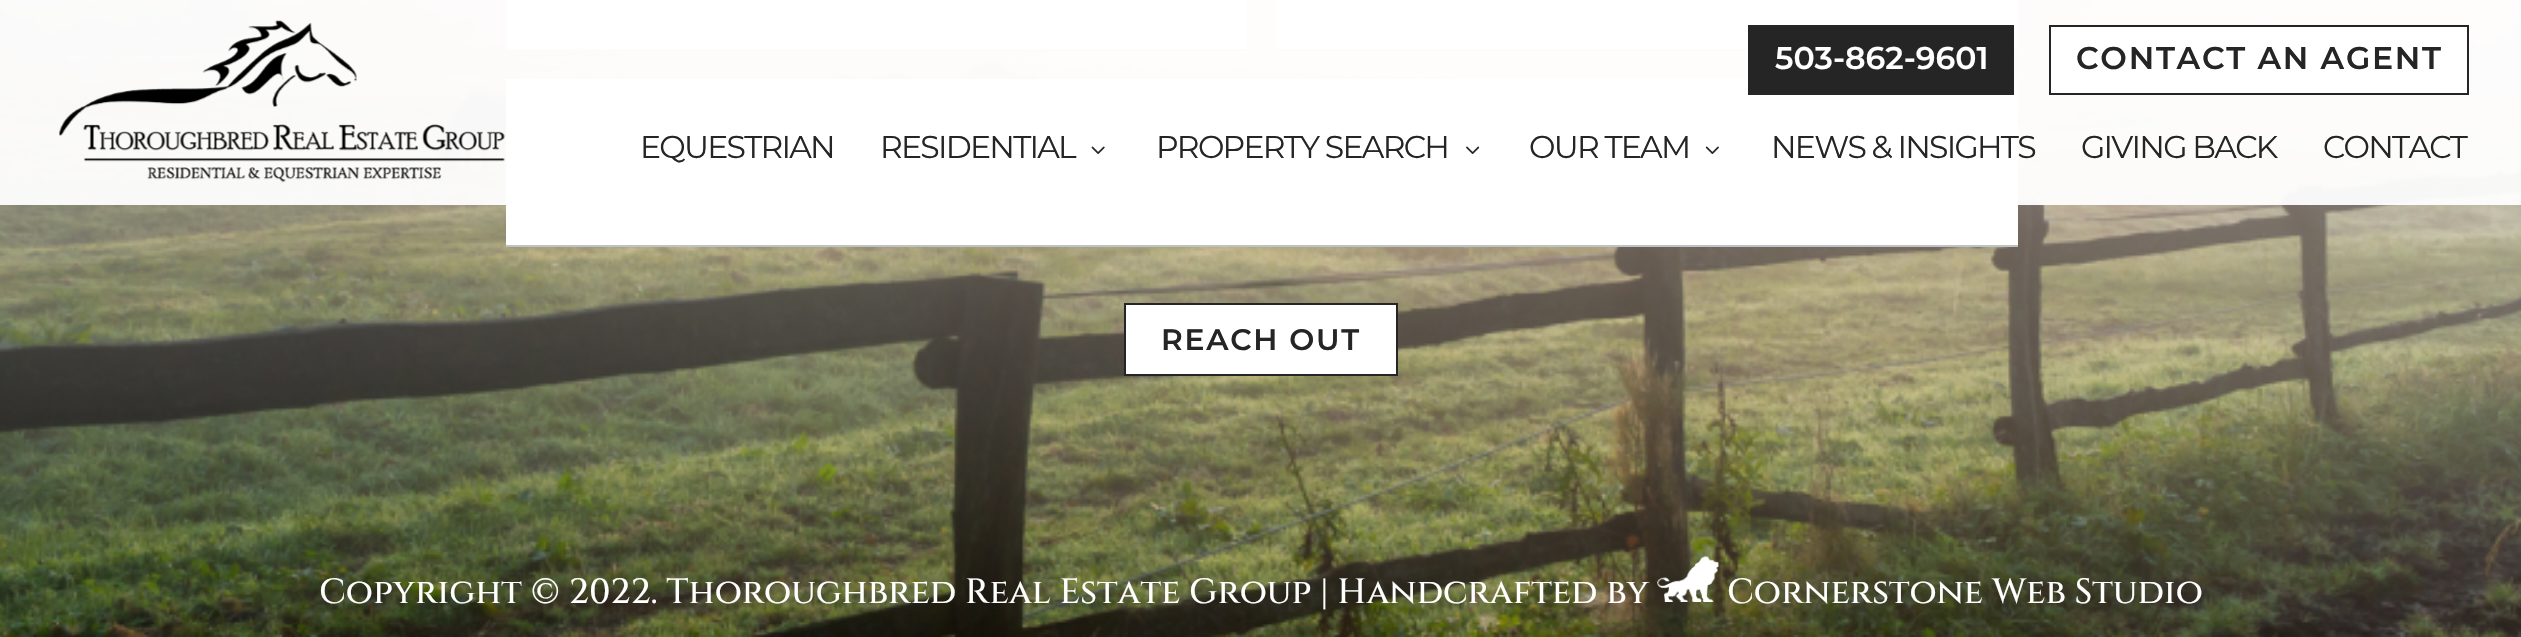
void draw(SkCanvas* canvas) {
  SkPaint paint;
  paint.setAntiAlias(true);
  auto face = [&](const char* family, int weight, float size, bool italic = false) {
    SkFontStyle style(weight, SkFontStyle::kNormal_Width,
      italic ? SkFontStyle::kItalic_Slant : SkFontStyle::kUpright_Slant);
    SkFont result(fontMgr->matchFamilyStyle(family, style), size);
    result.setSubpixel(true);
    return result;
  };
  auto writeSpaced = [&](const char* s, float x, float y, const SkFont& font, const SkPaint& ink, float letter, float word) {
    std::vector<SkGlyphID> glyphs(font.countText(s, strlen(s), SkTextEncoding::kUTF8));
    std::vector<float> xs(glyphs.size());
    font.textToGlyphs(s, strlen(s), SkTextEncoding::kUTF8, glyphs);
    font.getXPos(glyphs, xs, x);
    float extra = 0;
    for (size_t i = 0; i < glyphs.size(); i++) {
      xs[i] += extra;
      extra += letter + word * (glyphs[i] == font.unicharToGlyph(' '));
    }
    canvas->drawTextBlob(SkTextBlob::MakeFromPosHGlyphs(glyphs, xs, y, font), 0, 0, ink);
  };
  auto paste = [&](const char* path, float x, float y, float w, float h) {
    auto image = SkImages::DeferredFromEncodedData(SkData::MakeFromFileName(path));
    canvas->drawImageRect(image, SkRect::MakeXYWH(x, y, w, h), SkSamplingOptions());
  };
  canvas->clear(0xffffffff);
  paste("img/5.png", 0, 0, 2521, 637);
  {
    const struct { float x, y, w, h; SkColor color; } items[] = {
      {506, 0, 740, 49, 0xffffffff},
      {506, 49, 740, 2, 0xffbfc2c4},
      {1276, 0, 742, 49, 0xffffffff},
      {1276, 49, 742, 2, 0xffbfc2c4},
      {506, 79, 1512, 166, 0xffffffff},
      {0, 0, 2521, 95, 0xf2ffffff},
      {1748, 25, 266, 70, 0xff252525},
    };
    for (auto [x, y, w, h, color] : items) {
      paint.setColor(color);
      canvas->drawRect(SkRect::MakeXYWH(x, y, w, h), paint);
    }
  }
  paint.setColor(0xffffffff);
  canvas->drawRect(SkRect::MakeXYWH(2050, 26, 418, 68), paint);
  paint.setStroke(true);
  paint.setStrokeWidth(2);
  paint.setColor(0xff252525);
  canvas->drawRect(SkRect::MakeXYWH(2050, 26, 418, 68), paint);
  paint.setStroke(false);
  paint.setColor(0xf0ffffff);
  canvas->drawRect(SkRect::MakeXYWH(0, 95, 2521, 110), paint);
  paste("img/1.png", 59, 20, 446, 163);
  paste("img/2.png", 1091, 146, 14, 8);
  paste("img/3.png", 1466, 146, 14, 8);
  paste("img/4.png", 1705, 146, 14, 8);
  paint.setColor(0xffbfc2c4);
  canvas->drawRect(SkRect::MakeXYWH(506, 245, 1512, 2), paint);
  paint.setColor(0xffffffff);
  canvas->drawRect(SkRect::MakeXYWH(1125, 304, 272, 71), paint);
  paint.setStroke(true);
  paint.setColor(0xff252525);
  canvas->drawRect(SkRect::MakeXYWH(1125, 304, 272, 71), paint);
  paste("img/6.png", 1657, 556, 62, 46);
  auto f0 = face("Montserrat", 100, 31.5f);
  paint.setStroke(false);
  paint.setColor(0xffffffff);
  canvas->drawString("503-862-9601", 1775, 69, f0, paint);
  paint.setColor(0xff252525);
  writeSpaced("CONTACT AN AGENT", 2076, 69, f0, paint, 1.75f, 0);
  auto f1 = face("Montserrat", 400, 31.5f);
  {
    const struct { const char* s; float x, y; } items[] = {
      {"EQUESTRIAN", 640, 158},
      {"RESIDENTIAL", 880, 158},
      {"PROPERTY SEARCH", 1156, 158},
      {"OUR TEAM", 1529, 158},
      {"NEWS & INSIGHTS", 1771, 158},
      {"GIVING BACK", 2081, 158},
      {"CONTACT", 2323, 158},
    };
    for (auto [s, x, y] : items) {
      writeSpaced(s, x, y, f1, paint, -1.75f, 0);
    }
  }
  auto f2 = face("Montserrat", 100, 29.75f);
  writeSpaced("REACH OUT", 1161, 350, f2, paint, 1.75f, 0);
  auto f3 = face("Cinzel", 500, 35);
  paint.setColor(0xffffffff);
  canvas->drawString("Copyright © 2022. Thoroughbred Real Estate Group | Handcrafted by", 319, 603, f3, paint);
  canvas->drawString("Cornerstone Web Studio", 1727, 603, f3, paint);
}
